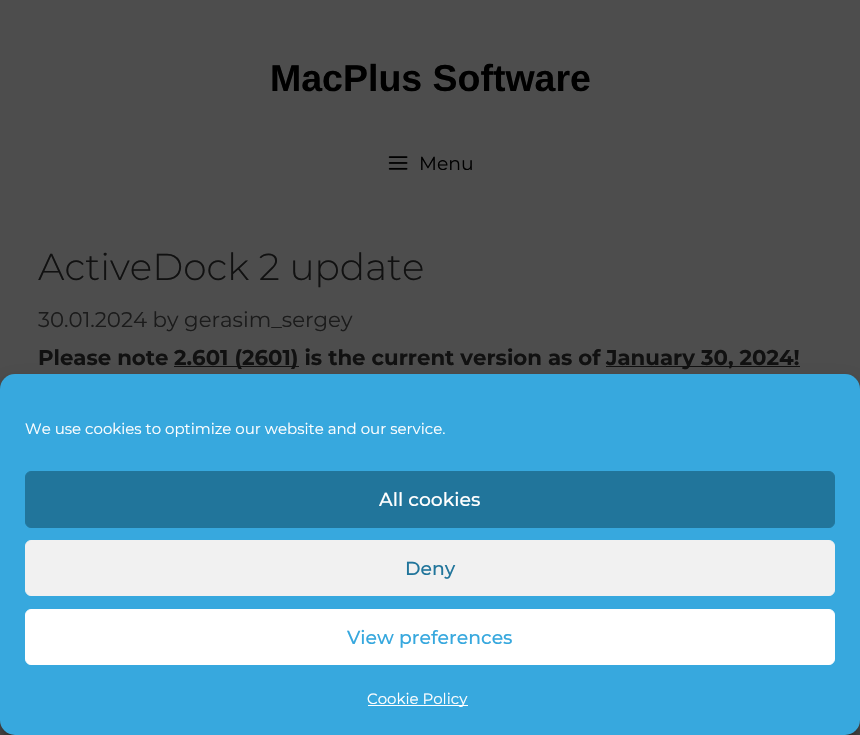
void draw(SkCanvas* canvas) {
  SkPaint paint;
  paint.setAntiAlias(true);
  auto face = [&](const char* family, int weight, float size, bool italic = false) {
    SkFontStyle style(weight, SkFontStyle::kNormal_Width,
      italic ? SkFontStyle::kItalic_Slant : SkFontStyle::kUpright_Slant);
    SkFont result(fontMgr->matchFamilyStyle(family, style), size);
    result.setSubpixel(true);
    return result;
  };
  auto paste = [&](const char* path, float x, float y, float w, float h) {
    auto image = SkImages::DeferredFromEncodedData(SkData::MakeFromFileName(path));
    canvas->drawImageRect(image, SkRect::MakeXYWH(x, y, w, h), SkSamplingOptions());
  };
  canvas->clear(0xff4d4d4d);
  paste("img/1.png", 388, 156, 20, 14);
  paint.setColor(0xff111111);
  canvas->drawRect(SkRect::MakeXYWH(174, 366, 125, 1), paint);
  canvas->drawRect(SkRect::MakeXYWH(606, 366, 194, 1), paint);
  paint.setColor(0x3b000000);
  paint.setMaskFilter(SkMaskFilter::MakeBlur(kNormal_SkBlurStyle, 4));
  canvas->drawRoundRect(SkRect::MakeXYWH(0, 381, 860, 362), 15, 15, paint);
  paint.setMaskFilter(nullptr);
  paint.setColor(0x30000000);
  paint.setMaskFilter(SkMaskFilter::MakeBlur(kNormal_SkBlurStyle, 12.5f));
  canvas->drawRoundRect(SkRect::MakeXYWH(0, 386, 860, 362), 15, 15, paint);
  paint.setMaskFilter(nullptr);
  paint.setColor(0xff262626);
  paint.setMaskFilter(SkMaskFilter::MakeBlur(kNormal_SkBlurStyle, 3));
  canvas->drawRoundRect(SkRect::MakeXYWH(773, 643, 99, 75), 2.5f, 2.5f, paint);
  paint.setMaskFilter(nullptr);
  paint.setColor(0xff37a8de);
  canvas->drawRoundRect(SkRect::MakeXYWH(0, 374, 860, 361), 15, 15, paint);
  paint.setColor(0xff21759b);
  canvas->drawRoundRect(SkRect::MakeXYWH(25.5f, 471.5f, 809, 56), 5.5f, 5.5f, paint);
  paint.setStroke(true);
  paint.setStrokeWidth(1);
  canvas->drawRoundRect(SkRect::MakeXYWH(25.5f, 471.5f, 809, 56), 5.5f, 5.5f, paint);
  paint.setStroke(false);
  paint.setColor(0xfff1f1f1);
  canvas->drawRoundRect(SkRect::MakeXYWH(25.5f, 540.5f, 809, 55), 5.5f, 5.5f, paint);
  paint.setStroke(true);
  canvas->drawRoundRect(SkRect::MakeXYWH(25.5f, 540.5f, 809, 55), 5.5f, 5.5f, paint);
  paint.setStroke(false);
  paint.setColor(0xffffffff);
  canvas->drawRoundRect(SkRect::MakeXYWH(25.5f, 609.5f, 809, 55), 5.5f, 5.5f, paint);
  paint.setStroke(true);
  canvas->drawRoundRect(SkRect::MakeXYWH(25.5f, 609.5f, 809, 55), 5.5f, 5.5f, paint);
  paint.setStroke(false);
  canvas->drawRect(SkRect::MakeXYWH(368, 705, 100, 1), paint);
  auto f0 = face("Liberation Sans", 700, 37.5f);
  paint.setColor(0xff000000);
  canvas->drawString("MacPlus Software", 270, 91, f0, paint);
  auto f1 = face("Montserrat", 400, 18.75f);
  canvas->drawString("Menu", 419, 170, f1, paint);
  auto f2 = face("Montserrat", 300, 37.5f);
  paint.setColor(0xff111111);
  canvas->drawString("ActiveDock 2 update", 38, 280, f2, paint);
  auto f3 = face("Montserrat", 400, 21.25f);
  paint.setColor(0xff1b1b1b);
  canvas->drawString("30.01.2024 by gerasim_sergey", 38, 327, f3, paint);
  auto f4 = face("Montserrat", 700, 21.25f);
  paint.setColor(0xff111111);
  {
    const struct { const char* s; float x, y; } items[] = {
      {"Please note", 38, 365},
      {"2.601 (2601) is the current version as of", 174, 365},
      {"January 30, 2024!", 606, 365},
    };
    for (auto [s, x, y] : items) {
      canvas->drawString(s, x, y, f4, paint);
    }
  }
  auto f5 = face("Montserrat", 400, 15);
  paint.setColor(0xffffffff);
  canvas->drawString("We use cookies to optimize our website and our service.", 25, 434, f5, paint);
  auto f6 = face("Montserrat", 500, 18.75f);
  canvas->drawString("All cookies", 379, 506, f6, paint);
  paint.setColor(0xff21759b);
  canvas->drawString("Deny", 405, 575, f6, paint);
  paint.setColor(0xff37a8de);
  canvas->drawString("View preferences", 347, 644, f6, paint);
  paint.setColor(0xffffffff);
  canvas->drawString("Cookie Policy", 367, 704, f5, paint);
}
